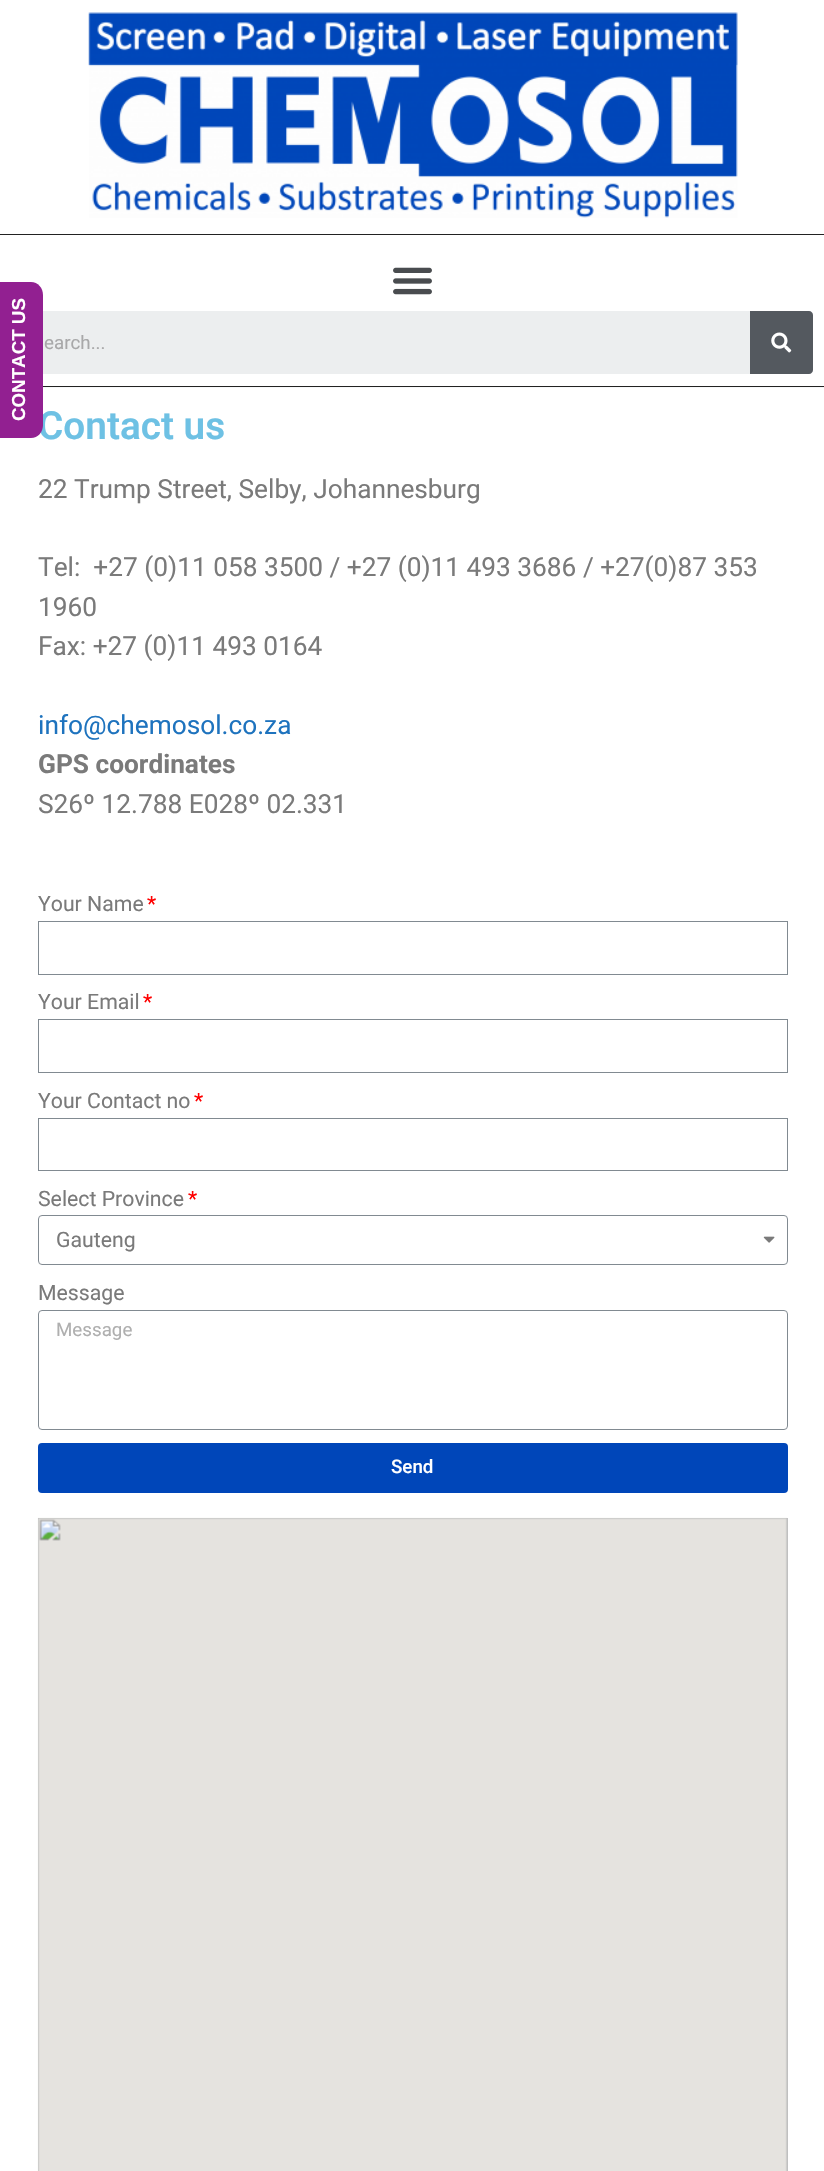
void draw(SkCanvas* canvas) {
  SkPaint paint;
  paint.setAntiAlias(true);
  auto face = [&](const char* family, int weight, float size, bool italic = false) {
    SkFontStyle style(weight, SkFontStyle::kNormal_Width,
      italic ? SkFontStyle::kItalic_Slant : SkFontStyle::kUpright_Slant);
    SkFont result(fontMgr->matchFamilyStyle(family, style), size);
    result.setSubpixel(true);
    return result;
  };
  auto paste = [&](const char* path, float x, float y, float w, float h) {
    auto image = SkImages::DeferredFromEncodedData(SkData::MakeFromFileName(path));
    canvas->drawImageRect(image, SkRect::MakeXYWH(x, y, w, h), SkSamplingOptions());
  };
  auto shape = [&](const char* data, bool evenOdd = false) {
    SkPath result = *SkParsePath::FromSVGString(data);
    if (evenOdd) result.setFillType(SkPathFillType::kEvenOdd);
    return result;
  };
  canvas->clear(0xfff7f8f9);
  paint.setColor(0xffffffff);
  canvas->drawRect(SkRect::MakeXYWH(0, 0, 824, 234), paint);
  paste("img/1.png", 88, 12, 650, 206);
  {
    const struct { float x, y, w, h; SkColor color; } items[] = {
      {0, 235, 824, 151, 0xffffffff},
      {0, 234, 824, 1, 0xff222222},
      {43, 386, 781, 1, 0xff222222},
    };
    for (auto [x, y, w, h, color] : items) {
      paint.setColor(color);
      canvas->drawRect(SkRect::MakeXYWH(x, y, w, h), paint);
    }
  }
  paste("img/2.png", 393, 267, 39, 28);
  paint.setColor(0xffeceeef);
  canvas->drawRoundRect(SkRect::MakeXYWH(13, 311, 800, 63), 4, 4, paint);
  paint.setColor(0xff54595f);
  canvas->drawPath(shape("M750 311H809C811 311 813 313 813 315V370C813 372 811 374 809 374H750Z"), paint);
  paste("img/3.png", 771, 332, 21, 21);
  paint.setColor(0xffffffff);
  canvas->drawRect(SkRect::MakeXYWH(0, 388, 824, 1783), paint);
  paint.setStroke(true);
  paint.setStrokeWidth(1);
  paint.setColor(0xff818a91);
  canvas->drawRect(SkRect::MakeXYWH(38.5f, 921.5f, 749, 53), paint);
  canvas->drawRect(SkRect::MakeXYWH(38.5f, 1019.5f, 749, 53), paint);
  canvas->drawRect(SkRect::MakeXYWH(38.5f, 1118.5f, 749, 52), paint);
  canvas->drawRoundRect(SkRect::MakeXYWH(38.5f, 1215.5f, 749, 49), 3.5f, 3.5f, paint);
  paste("img/4.png", 763, 1236, 12, 7);
  canvas->drawRoundRect(SkRect::MakeXYWH(38.5f, 1310.5f, 749, 119), 3.5f, 3.5f, paint);
  paint.setStroke(false);
  paint.setColor(0xff0046b9);
  canvas->drawRoundRect(SkRect::MakeXYWH(38, 1443, 750, 50), 4, 4, paint);
  paste("img/5.png", 37, 1517, 751, 654);
  auto f0 = face("Roboto", 400, 18.75f);
  paint.setColor(0xffa8a8a9);
  canvas->drawString("earch...", 44, 349, f0, paint);
  auto f1 = face("Roboto", 600, 38.75f);
  paint.setColor(0xff6ec1e4);
  canvas->drawString("Contact us", 38, 439, f1, paint);
  paint.setColor(0xff922091);
  canvas->drawPath(shape("M-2 438V282H31C38 282 43 288 43 295V425C43 432 38 438 31 438Z"), paint);
  auto f2 = face("Liberation Sans", 700, 18.75f);
  paint.setColor(0xffffffff);
  canvas->save();
  canvas->rotate(-90, 25, 421);
  canvas->drawString("CONTACT US", 25, 421, f2, paint);
  canvas->restore();
  auto f3 = face("Roboto", 400, 26.25f);
  paint.setColor(0xff7a7a7a);
  {
    const struct { const char* s; float x, y; } items[] = {
      {"22 Trump Street, Selby, Johannesburg", 38, 498},
      {"Tel:  +27 (0)11 058 3500 / +27 (0)11 493 3686 / +27(0)87 353", 38, 576},
      {"1960", 38, 616},
      {"Fax: +27 (0)11 493 0164", 38, 655},
    };
    for (auto [s, x, y] : items) {
      canvas->drawString(s, x, y, f3, paint);
    }
  }
  paint.setColor(0xff1e73be);
  canvas->drawString("info@chemosol.co.za", 38, 734, f3, paint);
  auto f4 = face("Roboto", 700, 26.25f);
  paint.setColor(0xff7a7a7a);
  canvas->drawString("GPS coordinates", 38, 773, f4, paint);
  canvas->drawString("S26º 12.788 E028º 02.331", 38, 813, f3, paint);
  auto f5 = face("Roboto", 400, 21.25f);
  canvas->drawString("Your Name", 38, 911, f5, paint);
  paint.setColor(0xffff0000);
  canvas->drawString("*", 147, 911, f5, paint);
  paint.setColor(0xff7a7a7a);
  canvas->drawString("Your Email", 38, 1009, f5, paint);
  paint.setColor(0xffff0000);
  canvas->drawString("*", 143, 1009, f5, paint);
  paint.setColor(0xff7a7a7a);
  canvas->drawString("Your Contact no", 38, 1108, f5, paint);
  paint.setColor(0xffff0000);
  canvas->drawString("*", 194, 1108, f5, paint);
  paint.setColor(0xff7a7a7a);
  canvas->drawString("Select Province", 38, 1206, f5, paint);
  paint.setColor(0xffff0000);
  canvas->drawString("*", 188, 1206, f5, paint);
  paint.setColor(0xff7a7a7a);
  canvas->drawString("Gauteng", 56, 1247, f5, paint);
  canvas->drawString("Message", 38, 1300, f5, paint);
  paint.setColor(0xffafafaf);
  canvas->drawString("Message", 56, 1336, f0, paint);
  auto f6 = face("Roboto", 500, 18.75f);
  paint.setColor(0xffffffff);
  canvas->drawString("Send", 391, 1473, f6, paint);
}
